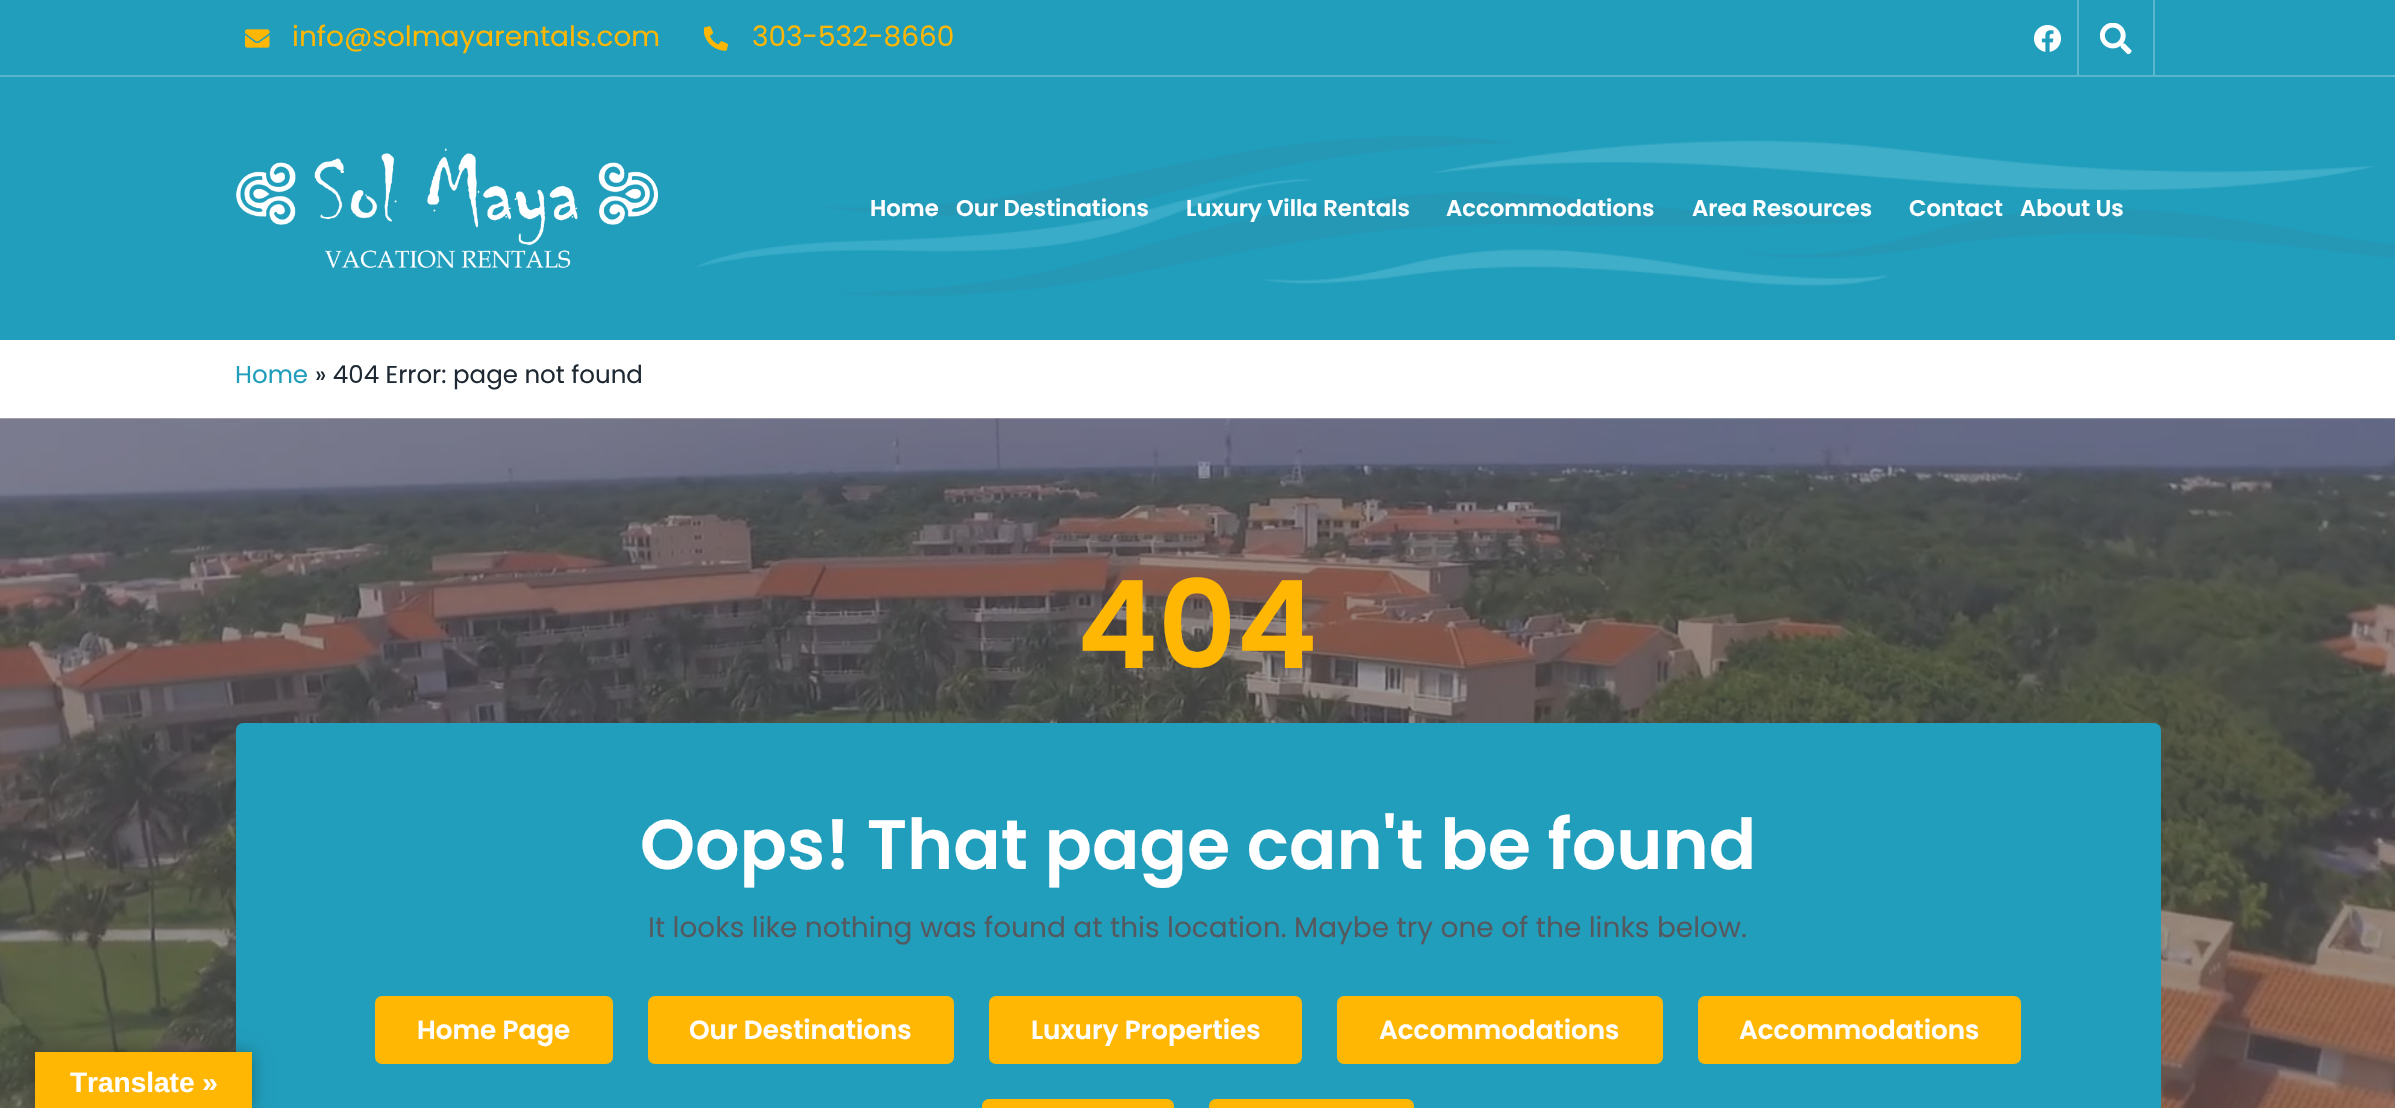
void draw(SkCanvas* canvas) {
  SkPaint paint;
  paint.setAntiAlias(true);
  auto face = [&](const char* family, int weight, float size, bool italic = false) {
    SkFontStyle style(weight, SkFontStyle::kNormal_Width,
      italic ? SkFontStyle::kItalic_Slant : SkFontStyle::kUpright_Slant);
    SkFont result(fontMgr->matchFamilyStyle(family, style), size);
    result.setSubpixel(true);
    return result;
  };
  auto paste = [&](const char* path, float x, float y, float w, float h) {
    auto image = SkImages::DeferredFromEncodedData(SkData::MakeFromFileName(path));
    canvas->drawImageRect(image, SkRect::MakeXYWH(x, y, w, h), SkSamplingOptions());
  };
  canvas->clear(0xffffffff);
  paint.setColor(0xff219ebc);
  canvas->drawRect(SkRect::MakeXYWH(0, 0, 2395, 75), paint);
  paint.setColor(0xff59b6cd);
  canvas->drawRect(SkRect::MakeXYWH(0, 75, 2395, 2), paint);
  paste("img/1.png", 245, 29, 25, 19);
  paste("img/2.png", 704, 26, 24, 25);
  paste("img/3.png", 2034, 25, 28, 27);
  canvas->drawRect(SkRect::MakeXYWH(2153, 0, 2, 75), paint);
  canvas->drawRect(SkRect::MakeXYWH(2077, 0, 2, 75), paint);
  paste("img/4.png", 2100, 23, 32, 31);
  paint.setColor(0xff219ebc);
  canvas->drawRect(SkRect::MakeXYWH(0, 77, 2395, 263), paint);
  paste("img/5.png", 697, 136, 1698, 160);
  paste("img/6.png", 236, 148, 422, 120);
  paste("img/7.png", 0, 418, 2395, 690);
  canvas->drawRoundRect(SkRect::MakeXYWH(236, 723, 1925, 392), 7, 7, paint);
  paint.setColor(0xffffb703);
  canvas->drawRoundRect(SkRect::MakeXYWH(375, 996, 238, 68), 7, 7, paint);
  canvas->drawRoundRect(SkRect::MakeXYWH(648, 996, 306, 68), 7, 7, paint);
  canvas->drawRoundRect(SkRect::MakeXYWH(989, 996, 313, 68), 7, 7, paint);
  canvas->drawRoundRect(SkRect::MakeXYWH(1337, 996, 326, 68), 7, 7, paint);
  canvas->drawRoundRect(SkRect::MakeXYWH(1698, 996, 323, 68), 7, 7, paint);
  canvas->drawRoundRect(SkRect::MakeXYWH(982, 1099, 192, 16), 7, 7, paint);
  canvas->drawRoundRect(SkRect::MakeXYWH(1209, 1099, 205, 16), 7, 7, paint);
  paint.setColor(0x4d000000);
  paint.setMaskFilter(SkMaskFilter::MakeBlur(kNormal_SkBlurStyle, 8));
  canvas->drawRect(SkRect::MakeXYWH(35, 1052, 217, 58), paint);
  paint.setMaskFilter(nullptr);
  paint.setColor(0xffffb703);
  canvas->drawRect(SkRect::MakeXYWH(35, 1052, 217, 56), paint);
  auto f0 = face("Poppins", 400, 28);
  canvas->drawString("info@solmayarentals.com", 292, 46, f0, paint);
  canvas->drawString("303-532-8660", 752, 46, f0, paint);
  auto f1 = face("Poppins", 600, 22.75f);
  paint.setColor(0xffffffff);
  {
    const struct { const char* s; float x, y; } items[] = {
      {"Home", 870, 216},
      {"Our Destinations", 956, 216},
      {"Luxury Villa Rentals", 1186, 216},
      {"Accommodations", 1446, 216},
      {"Area Resources", 1692, 216},
      {"Contact", 1909, 216},
      {"About Us", 2020, 216},
    };
    for (auto [s, x, y] : items) {
      canvas->drawString(s, x, y, f1, paint);
    }
  }
  auto f2 = face("Poppins", 400, 24.5f);
  paint.setColor(0xff219ebc);
  canvas->drawString("Home", 235, 383, f2, paint);
  paint.setColor(0xff1f2933);
  canvas->drawString("» 404 Error: page not found", 315, 383, f2, paint);
  auto f3 = face("Poppins", 600, 122);
  paint.setColor(0xffffb703);
  canvas->drawString("404", 1077, 668, f3, paint);
  auto f4 = face("Poppins", 600, 70);
  paint.setColor(0xffffffff);
  canvas->drawString("Oops! That page can't be found", 640, 869, f4, paint);
  paint.setColor(0xff54595f);
  canvas->drawString("It looks like nothing was found at this location. Maybe try one of the links below.", 648, 937, f0, paint);
  auto f5 = face("Poppins", 600, 26.25f);
  paint.setColor(0xffffffff);
  {
    const struct { const char* s; float x, y; } items[] = {
      {"Home Page", 417, 1039},
      {"Our Destinations", 689, 1039},
      {"Luxury Properties", 1031, 1039},
      {"Accommodations", 1379, 1039},
      {"Accommodations", 1739, 1039},
    };
    for (auto [s, x, y] : items) {
      canvas->drawString(s, x, y, f5, paint);
    }
  }
  auto f6 = face("Liberation Sans", 700, 28);
  canvas->drawString("Translate »", 70, 1092, f6, paint);
}
